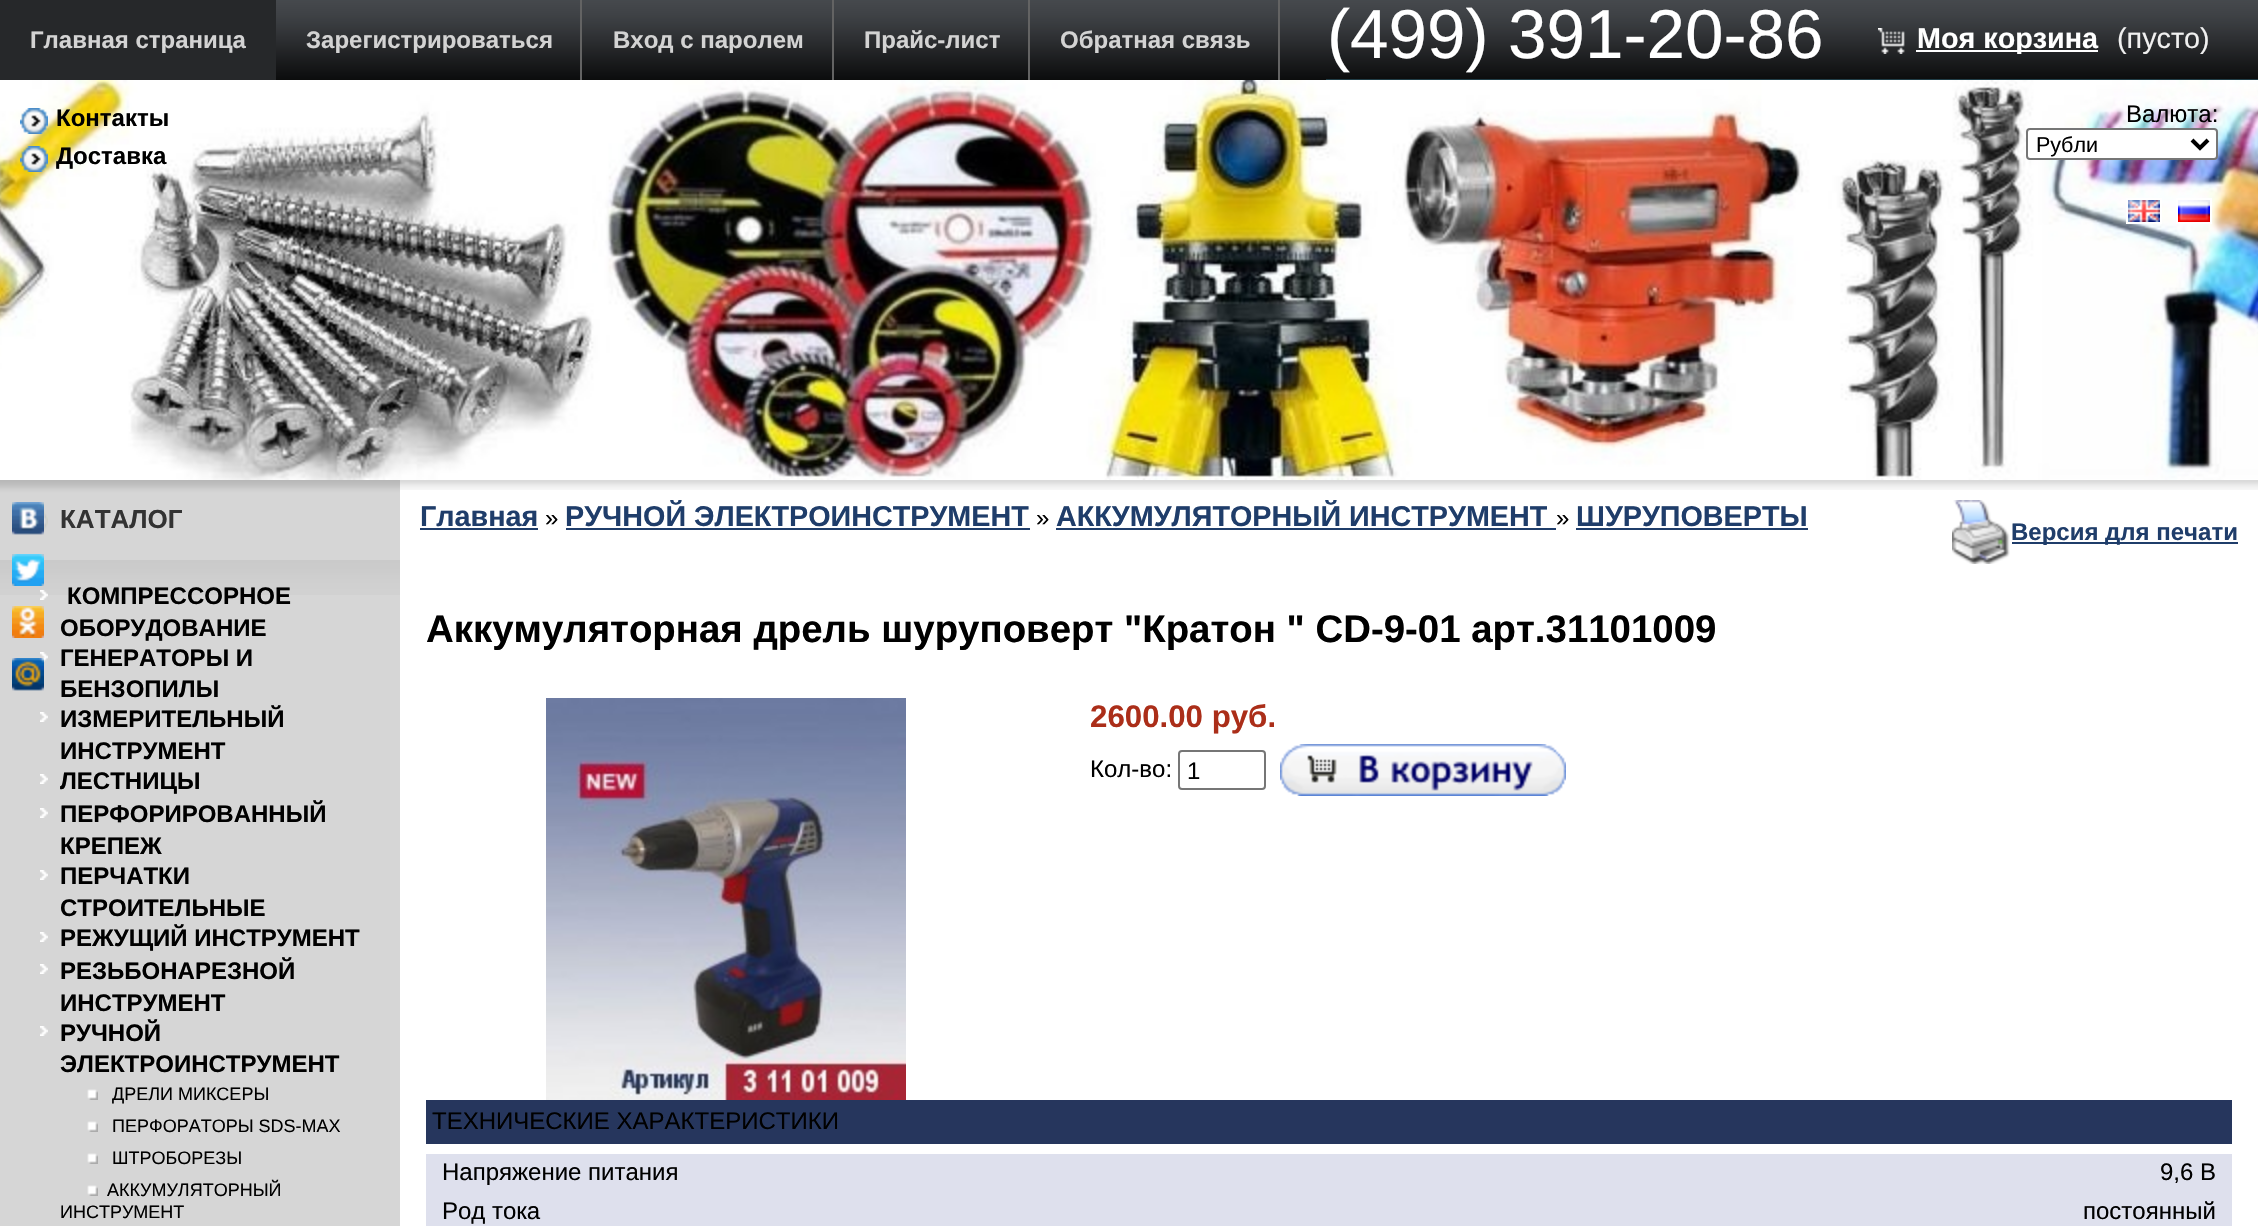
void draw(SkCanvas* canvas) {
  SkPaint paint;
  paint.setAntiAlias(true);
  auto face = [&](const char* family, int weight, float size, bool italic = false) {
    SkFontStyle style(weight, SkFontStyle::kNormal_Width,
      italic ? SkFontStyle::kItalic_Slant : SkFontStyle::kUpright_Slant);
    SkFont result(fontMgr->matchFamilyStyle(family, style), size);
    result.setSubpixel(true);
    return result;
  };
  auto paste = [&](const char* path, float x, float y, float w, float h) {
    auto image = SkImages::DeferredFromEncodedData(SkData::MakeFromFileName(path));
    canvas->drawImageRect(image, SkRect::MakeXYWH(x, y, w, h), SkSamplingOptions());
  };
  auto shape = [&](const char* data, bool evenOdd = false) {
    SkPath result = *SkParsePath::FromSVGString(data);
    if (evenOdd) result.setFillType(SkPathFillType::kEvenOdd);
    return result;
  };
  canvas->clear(0xffffffff);
  paste("img/1.png", 276, 0, 1982, 80);
  {
    const struct { float x, y, w, h; SkColor color; } items[] = {
      {276, 79, 1050, 1, 0xff0c0d0d},
      {0, 0, 276, 80, 0xff26282a},
      {580, 0, 2, 80, 0xff636363},
      {832, 0, 2, 80, 0xff636363},
      {1028, 0, 2, 80, 0xff636363},
      {1278, 0, 2, 80, 0xff636363},
    };
    for (auto [x, y, w, h, color] : items) {
      paint.setColor(color);
      canvas->drawRect(SkRect::MakeXYWH(x, y, w, h), paint);
    }
  }
  paste("img/2.png", 1878, 28, 27, 26);
  paint.setColor(0xffffffff);
  canvas->drawRect(SkRect::MakeXYWH(1916, 50, 182, 2), paint);
  paste("img/3.png", 0, 80, 2258, 400);
  paste("img/4.png", 20, 108, 28, 26);
  paste("img/5.png", 20, 146, 28, 26);
  canvas->drawRoundRect(SkRect::MakeXYWH(2027, 129, 190, 30), 3, 3, paint);
  paint.setStroke(true);
  paint.setStrokeWidth(2);
  paint.setColor(0xff767676);
  canvas->drawRoundRect(SkRect::MakeXYWH(2027, 129, 190, 30), 3, 3, paint);
  paint.setStrokeWidth(4);
  paint.setColor(0xff000000);
  canvas->drawPath(shape("M2192 140L2200 148L2208 140"), paint);
  paint.setStrokeWidth(2);
  paint.setColor(0xffffffff);
  canvas->drawRect(SkRect::MakeXYWH(2127, 199, 34, 24), paint);
  canvas->drawRect(SkRect::MakeXYWH(2177, 199, 34, 24), paint);
  paste("img/6.png", 2128, 200, 32, 22);
  paste("img/7.png", 2178, 200, 32, 22);
  paste("img/12.png", 0, 480, 400, 80);
  paste("img/13.png", 26, 508, 22, 26);
  paste("img/8.png", 12, 502, 32, 33);
  paste("img/14.png", 0, 560, 400, 35);
  paste("img/9.png", 12, 554, 32, 32);
  paint.setStroke(false);
  paint.setColor(0xffd6d6d6);
  canvas->drawRect(SkRect::MakeXYWH(0, 595, 400, 631), paint);
  paste("img/10.png", 12, 606, 32, 32);
  paste("img/16.png", 40, 652, 8, 10);
  paste("img/11.png", 12, 658, 32, 33);
  paste("img/15.png", 40, 590, 8, 10);
  paste("img/16.png", 40, 712, 8, 10);
  paste("img/16.png", 40, 774, 8, 10);
  paste("img/16.png", 40, 808, 8, 10);
  paste("img/16.png", 40, 870, 8, 10);
  paste("img/16.png", 40, 932, 8, 10);
  paste("img/16.png", 40, 964, 8, 10);
  paste("img/16.png", 40, 1026, 8, 10);
  paste("img/17.png", 87, 1089, 11, 11);
  paste("img/17.png", 87, 1121, 11, 11);
  paste("img/17.png", 87, 1153, 11, 11);
  paste("img/17.png", 87, 1185, 11, 11);
  paste("img/18.png", 400, 480, 1858, 10);
  {
    const struct { float x, y, w, h; SkColor color; } items[] = {
      {420, 528, 118, 2, 0xff1f3d6a},
      {566, 528, 464, 2, 0xff1f3d6a},
      {1056, 528, 500, 2, 0xff1f3d6a},
      {1576, 528, 232, 2, 0xff1f3d6a},
    };
    for (auto [x, y, w, h, color] : items) {
      paint.setColor(color);
      canvas->drawRect(SkRect::MakeXYWH(x, y, w, h), paint);
    }
  }
  paste("img/19.png", 1952, 500, 58, 64);
  canvas->drawRect(SkRect::MakeXYWH(2012, 542, 226, 2), paint);
  paste("img/20.png", 546, 698, 360, 402);
  paint.setStroke(true);
  paint.setColor(0xff767676);
  canvas->drawRoundRect(SkRect::MakeXYWH(1179, 751, 86, 38), 3, 3, paint);
  paste("img/21.png", 1280, 744, 286, 52);
  paint.setStroke(false);
  {
    const struct { float x, y, w, h; SkColor color; } items[] = {
      {426, 1100, 1806, 44, 0xff26365d},
      {426, 1154, 1806, 40, 0xffdee0ed},
      {426, 1194, 1806, 32, 0xffdee0ed},
    };
    for (auto [x, y, w, h, color] : items) {
      paint.setColor(color);
      canvas->drawRect(SkRect::MakeXYWH(x, y, w, h), paint);
    }
  }
  auto f0 = face("Liberation Sans", 700, 24);
  paint.setColor(0xffd3d3d3);
  {
    const struct { const char* s; float x, y; } items[] = {
      {"Главная страница", 30, 48},
      {"Зарегистрироваться", 306, 48},
      {"Вход с паролем", 613, 48},
      {"Прайс-лист", 864, 48},
      {"Обратная связь", 1060, 48},
    };
    for (auto [s, x, y] : items) {
      canvas->drawString(s, x, y, f0, paint);
    }
  }
  auto f1 = face("Liberation Sans", 400, 69.25f);
  paint.setColor(0xffffffff);
  canvas->drawString("(499) 391-20-86", 1327, 58, f1, paint);
  auto f2 = face("Liberation Sans", 700, 28.75f);
  canvas->drawString("Моя корзина", 1917, 48, f2, paint);
  auto f3 = face("Liberation Sans", 400, 28.75f);
  paint.setColor(0xfff0f0f0);
  canvas->drawString("(пусто)", 2117, 48, f3, paint);
  paint.setColor(0xff000000);
  canvas->drawString("Контакты", 56, 126, f0, paint);
  canvas->drawString("Доставка", 56, 164, f0, paint);
  auto f4 = face("Liberation Sans", 400, 24);
  canvas->drawString("Валюта:", 2126, 122, f4, paint);
  auto f5 = face("Liberation Sans", 400, 21.5f);
  canvas->drawString("Рубли", 2036, 152, f5, paint);
  auto f6 = face("Liberation Sans", 700, 26);
  paint.setColor(0xff333333);
  canvas->drawString("КАТАЛОГ", 60, 528, f6, paint);
  paint.setColor(0xff000000);
  {
    const struct { const char* s; float x, y; } items[] = {
      {"КОМПРЕССОРНОЕ", 67, 604},
      {"ОБОРУДОВАНИЕ", 60, 636},
      {"ГЕНЕРАТОРЫ И", 60, 666},
      {"БЕНЗОПИЛЫ", 60, 697},
      {"ИЗМЕРИТЕЛЬНЫЙ", 60, 727},
      {"ИНСТРУМЕНТ", 60, 759},
      {"ЛЕСТНИЦЫ", 60, 789},
      {"ПЕРФОРИРОВАННЫЙ", 60, 822},
      {"КРЕПЕЖ", 60, 854},
      {"ПЕРЧАТКИ", 60, 884},
      {"СТРОИТЕЛЬНЫЕ", 60, 916},
      {"РЕЖУЩИЙ ИНСТРУМЕНТ", 60, 946},
      {"РЕЗЬБОНАРЕЗНОЙ", 60, 979},
      {"ИНСТРУМЕНТ", 60, 1011},
      {"РУЧНОЙ", 60, 1041},
      {"ЭЛЕКТРОИНСТРУМЕНТ", 60, 1072},
    };
    for (auto [s, x, y] : items) {
      canvas->drawString(s, x, y, f0, paint);
    }
  }
  auto f7 = face("Liberation Sans", 400, 18);
  {
    const struct { const char* s; float x, y; } items[] = {
      {"ДРЕЛИ МИКСЕРЫ", 112, 1100},
      {"ПЕРФОРАТОРЫ SDS-MAX", 112, 1132},
      {"ШТРОБОРЕЗЫ", 112, 1164},
      {"АККУМУЛЯТОРНЫЙ", 107, 1196},
      {"ИНСТРУМЕНТ", 60, 1218},
    };
    for (auto [s, x, y] : items) {
      canvas->drawString(s, x, y, f7, paint);
    }
  }
  paint.setColor(0xff1f3d6a);
  canvas->drawString("Главная", 420, 526, f2, paint);
  paint.setColor(0xff000000);
  canvas->drawString("»", 545, 526, f4, paint);
  paint.setColor(0xff1f3d6a);
  canvas->drawString("РУЧНОЙ ЭЛЕКТРОИНСТРУМЕНТ", 565, 526, f2, paint);
  paint.setColor(0xff000000);
  canvas->drawString("»", 1036, 526, f4, paint);
  paint.setColor(0xff1f3d6a);
  canvas->drawString("АККУМУЛЯТОРНЫЙ ИНСТРУМЕНТ", 1056, 526, f2, paint);
  paint.setColor(0xff000000);
  canvas->drawString("»", 1556, 526, f4, paint);
  paint.setColor(0xff1f3d6a);
  canvas->drawString("ШУРУПОВЕРТЫ", 1576, 526, f2, paint);
  canvas->drawString("Версия для печати", 2011, 540, f0, paint);
  auto f8 = face("Liberation Sans", 700, 38.4f);
  paint.setColor(0xff000000);
  canvas->drawString("Аккумуляторная дрель шуруповерт \"Кратон \" CD-9-01 арт.31101009", 426, 642, f8, paint);
  auto f9 = face("Liberation Sans", 700, 31.25f);
  paint.setColor(0xffab2e19);
  canvas->drawString("2600.00 руб.", 1090, 727, f9, paint);
  paint.setColor(0xff000000);
  {
    const struct { const char* s; float x, y; } items[] = {
      {"Кол-во:", 1090, 777},
      {"1", 1187, 779},
      {"ТЕХНИЧЕСКИЕ ХАРАКТЕРИСТИКИ", 432, 1129},
      {"Напряжение питания", 442, 1180},
      {"9,6 В", 2160, 1180},
      {"Род тока", 442, 1219},
      {"постоянный", 2083, 1219},
    };
    for (auto [s, x, y] : items) {
      canvas->drawString(s, x, y, f4, paint);
    }
  }
}
